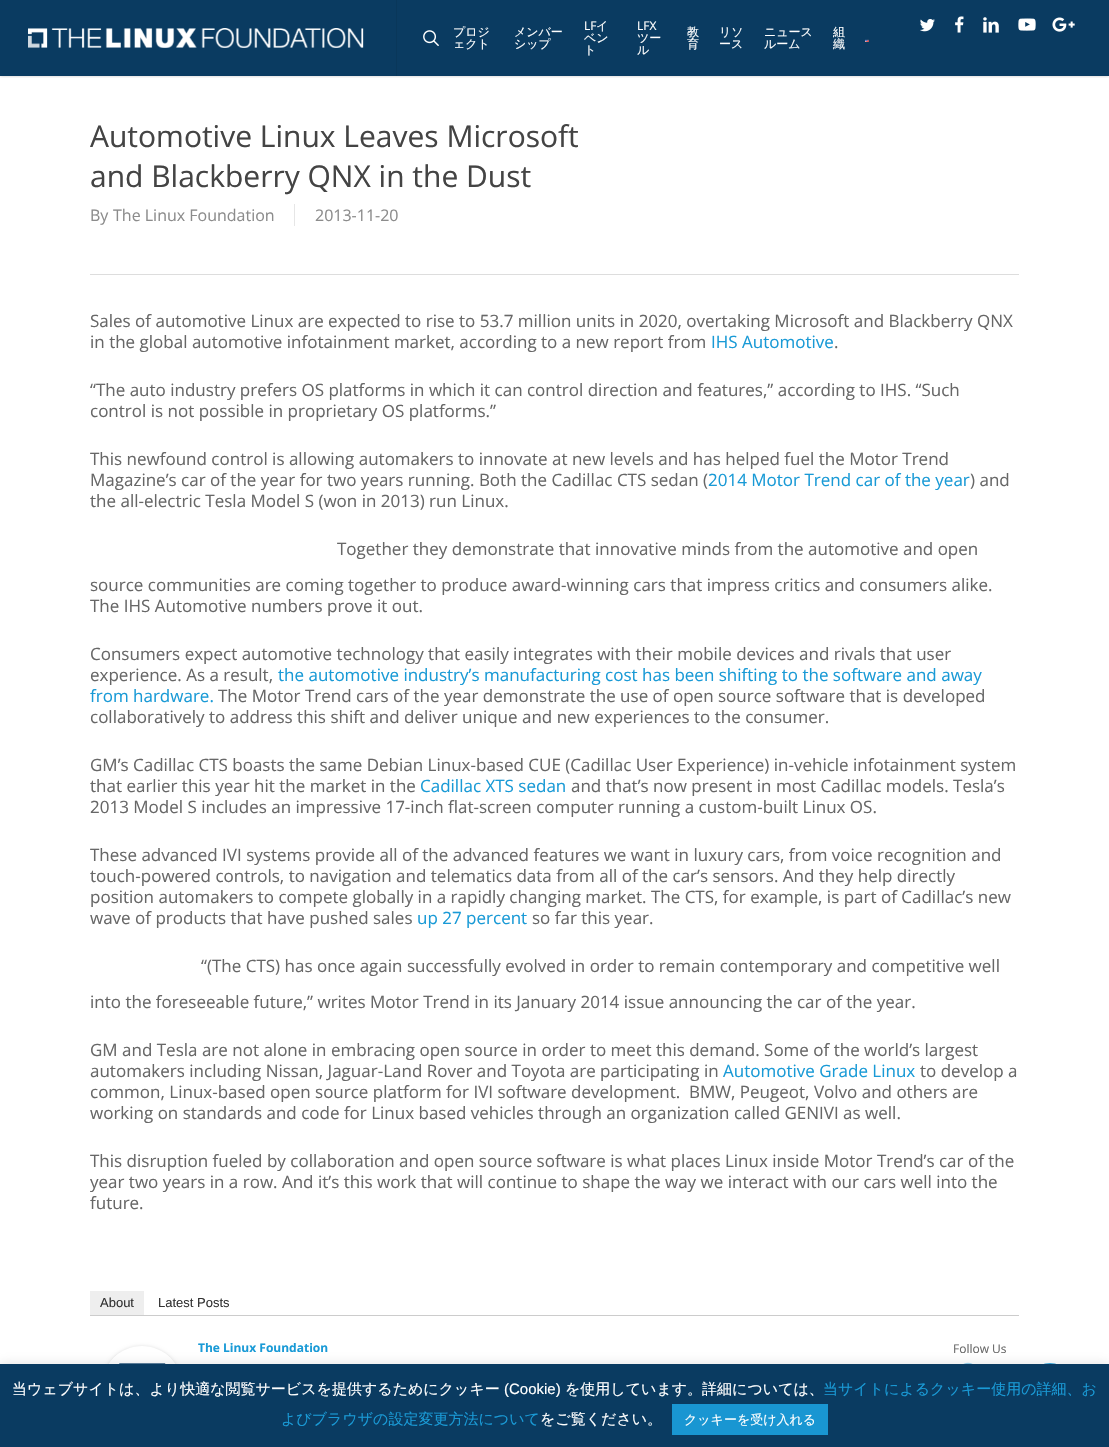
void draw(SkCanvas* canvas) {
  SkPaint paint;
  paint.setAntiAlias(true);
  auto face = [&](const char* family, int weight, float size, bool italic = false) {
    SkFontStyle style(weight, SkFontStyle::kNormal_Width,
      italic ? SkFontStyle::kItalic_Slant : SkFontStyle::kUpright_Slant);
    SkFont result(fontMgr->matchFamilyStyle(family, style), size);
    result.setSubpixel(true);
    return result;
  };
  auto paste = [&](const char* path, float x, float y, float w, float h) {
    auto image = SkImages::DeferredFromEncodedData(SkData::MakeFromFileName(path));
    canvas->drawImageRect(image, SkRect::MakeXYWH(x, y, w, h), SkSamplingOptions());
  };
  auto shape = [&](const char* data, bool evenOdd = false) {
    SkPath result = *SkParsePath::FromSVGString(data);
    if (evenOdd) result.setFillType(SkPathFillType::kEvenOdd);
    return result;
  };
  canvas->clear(0xffffffff);
  paint.setColor(0xff0a3b61);
  canvas->drawRect(SkRect::MakeXYWH(0, 0, 1109, 76), paint);
  canvas->save();
  canvas->clipRect(SkRect::MakeXYWH(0, 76, 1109, 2));
  paint.setColor(0x38000000);
  paint.setMaskFilter(SkMaskFilter::MakeBlur(kNormal_SkBlurStyle, 1.5f));
  canvas->drawRect(SkRect::MakeXYWH(0, 0, 1109, 76), paint);
  paint.setMaskFilter(nullptr);
  canvas->restore();
  paste("img/1.png", 28, 28, 336, 20);
  paint.setColor(0xff09375a);
  canvas->drawRect(SkRect::MakeXYWH(396, 0, 1, 76), paint);
  paste("img/2.png", 423, 30, 16, 16);
  paste("img/3.png", 865, 39, 4, 3);
  paste("img/4.png", 920, 19, 15, 13);
  paste("img/5.png", 955, 16, 9, 17);
  paste("img/6.png", 983, 17, 16, 16);
  paste("img/7.png", 1018, 18, 18, 13);
  paste("img/8.png", 1052, 17, 23, 15);
  {
    const struct { float x, y, w, h; SkColor color; } items[] = {
      {90, 274, 929, 1, 0xffdddddd},
      {294, 204, 1, 22, 0xffe6e6e6},
      {90, 1315, 929, 1, 0xffcccccc},
      {90, 1291, 54, 24, 0xffeeeeee},
    };
    for (auto [x, y, w, h, color] : items) {
      paint.setColor(color);
      canvas->drawRect(SkRect::MakeXYWH(x, y, w, h), paint);
    }
  }
  canvas->save();
  canvas->clipPath(shape("M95 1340H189V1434H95ZM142 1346C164 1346 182 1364 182 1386C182 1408 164 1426 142 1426C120 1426 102 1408 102 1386C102 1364 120 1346 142 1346Z", true), true);
  paint.setColor(0x33000000);
  paint.setMaskFilter(SkMaskFilter::MakeBlur(kNormal_SkBlurStyle, 2));
  canvas->drawRoundRect(SkRect::MakeXYWH(102, 1347, 80, 80), 40, 40, paint);
  paint.setMaskFilter(nullptr);
  canvas->restore();
  paste("img/9.png", 108, 1353, 68, 11);
  paste("img/10.png", 963, 1362, 10, 2);
  paint.setColor(0xff199ad6);
  canvas->drawCircle(1050, 1388, 25, paint);
  paint.setColor(0x4dacabab);
  paint.setMaskFilter(SkMaskFilter::MakeBlur(kNormal_SkBlurStyle, 5));
  canvas->drawRect(SkRect::MakeXYWH(0, 1363, 1109, 83), paint);
  paint.setMaskFilter(nullptr);
  paint.setColor(0xff0a3b61);
  canvas->drawRect(SkRect::MakeXYWH(0, 1364, 1109, 83), paint);
  paint.setColor(0xff1996d2);
  canvas->drawRect(SkRect::MakeXYWH(672, 1404, 156, 31), paint);
  auto f0 = face("WenQuanYi Zen Hei", 500, 12);
  paint.setColor(0xffffffff);
  {
    const struct { const char* s; float x, y; } items[] = {
      {"プロジ", 453, 36},
      {"ェクト", 453, 48},
      {"メンバー", 514, 36},
      {"シップ", 514, 48},
    };
    for (auto [s, x, y] : items) {
      canvas->drawString(s, x, y, f0, paint);
    }
  }
  auto f1 = face("Open Sans", 400, 12);
  canvas->drawString("LF", 584, 30, f1, paint);
  {
    const struct { const char* s; float x, y; } items[] = {
      {"イ", 596, 30},
      {"ベン", 584, 42},
      {"ト", 584, 54},
    };
    for (auto [s, x, y] : items) {
      canvas->drawString(s, x, y, f0, paint);
    }
  }
  canvas->drawString("LFX", 637, 30, f1, paint);
  {
    const struct { const char* s; float x, y; } items[] = {
      {"ツー", 637, 42},
      {"ル", 637, 54},
      {"教", 687, 36},
      {"育", 687, 48},
      {"リソ", 719, 36},
      {"ース", 719, 48},
      {"ニュース", 764, 36},
      {"ルーム", 764, 48},
      {"組", 833, 36},
      {"織", 833, 48},
    };
    for (auto [s, x, y] : items) {
      canvas->drawString(s, x, y, f0, paint);
    }
  }
  auto f2 = face("Open Sans", 400, 30);
  paint.setColor(0xff444444);
  canvas->drawString("Automotive Linux Leaves Microsoft", 90, 147, f2, paint);
  canvas->drawString("and Blackberry QNX in the Dust", 90, 187, f2, paint);
  auto f3 = face("Open Sans", 400, 16);
  paint.setColor(0xff8c8c8c);
  {
    const struct { const char* s; float x, y; } items[] = {
      {"By", 90, 221},
      {"The Linux Foundation", 113, 221},
      {"2013-11-20", 315, 221},
    };
    for (auto [s, x, y] : items) {
      canvas->drawString(s, x, y, f3, paint);
    }
  }
  auto f4 = face("Open Sans", 400, 17);
  paint.setColor(0xff676767);
  canvas->drawString("Sales of automotive Linux are expected to rise to 53.7 million units in 2020, overtaking Microsoft and Blackberry QNX", 90, 327, f4, paint);
  canvas->drawString("in the global automotive infotainment market, according to a new report from", 90, 348, f4, paint);
  paint.setColor(0xff199ad6);
  canvas->drawString("IHS Automotive", 711, 348, f4, paint);
  paint.setColor(0xff676767);
  {
    const struct { const char* s; float x, y; } items[] = {
      {".", 834, 348},
      {"“The auto industry prefers OS platforms in which it can control direction and features,” according to IHS. “Such", 90, 396},
      {"control is not possible in proprietary OS platforms.”", 90, 417},
      {"This newfound control is allowing automakers to innovate at new levels and has helped fuel the Motor Trend", 90, 465},
      {"Magazine’s car of the year for two years running. Both the Cadillac CTS sedan (", 90, 486},
    };
    for (auto [s, x, y] : items) {
      canvas->drawString(s, x, y, f4, paint);
    }
  }
  paint.setColor(0xff199ad6);
  canvas->drawString("2014 Motor Trend car of the year", 708, 486, f4, paint);
  paint.setColor(0xff676767);
  {
    const struct { const char* s; float x, y; } items[] = {
      {") and", 970, 486},
      {"the all-electric Tesla Model S (won in 2013) run Linux.", 90, 507},
      {"Together they demonstrate that innovative minds from the automotive and open", 337, 555},
      {"source communities are coming together to produce award-winning cars that impress critics and consumers alike.", 90, 591},
      {"The IHS Automotive numbers prove it out.", 90, 612},
      {"Consumers expect automotive technology that easily integrates with their mobile devices and rivals that user", 90, 660},
      {"experience. As a result,", 90, 681},
    };
    for (auto [s, x, y] : items) {
      canvas->drawString(s, x, y, f4, paint);
    }
  }
  paint.setColor(0xff199ad6);
  canvas->drawString("the automotive industry’s manufacturing cost has been shifting to the software and away", 278, 681, f4, paint);
  canvas->drawString("from hardware.", 90, 702, f4, paint);
  paint.setColor(0xff676767);
  {
    const struct { const char* s; float x, y; } items[] = {
      {"The Motor Trend cars of the year demonstrate the use of open source software that is developed", 218, 702},
      {"collaboratively to address this shift and deliver unique and new experiences to the consumer.", 90, 723},
      {"GM’s Cadillac CTS boasts the same Debian Linux-based CUE (Cadillac User Experience) in-vehicle infotainment system", 90, 771},
      {"that earlier this year hit the market in the", 90, 792},
    };
    for (auto [s, x, y] : items) {
      canvas->drawString(s, x, y, f4, paint);
    }
  }
  paint.setColor(0xff199ad6);
  canvas->drawString("Cadillac XTS sedan", 420, 792, f4, paint);
  paint.setColor(0xff676767);
  {
    const struct { const char* s; float x, y; } items[] = {
      {"and that’s now present in most Cadillac models. Tesla’s", 571, 792},
      {"2013 Model S includes an impressive 17-inch flat-screen computer running a custom-built Linux OS.", 90, 813},
      {"These advanced IVI systems provide all of the advanced features we want in luxury cars, from voice recognition and", 90, 861},
      {"touch-powered controls, to navigation and telematics data from all of the car’s sensors. And they help directly", 90, 882},
      {"position automakers to compete globally in a rapidly changing market. The CTS, for example, is part of Cadillac’s new", 90, 903},
      {"wave of products that have pushed sales", 90, 924},
    };
    for (auto [s, x, y] : items) {
      canvas->drawString(s, x, y, f4, paint);
    }
  }
  paint.setColor(0xff199ad6);
  canvas->drawString("up 27 percent", 417, 924, f4, paint);
  paint.setColor(0xff676767);
  {
    const struct { const char* s; float x, y; } items[] = {
      {"so far this year.", 532, 924},
      {"“(The CTS) has once again successfully evolved in order to remain contemporary and competitive well", 201, 972},
      {"into the foreseeable future,” writes Motor Trend in its January 2014 issue announcing the car of the year.", 90, 1008},
      {"GM and Tesla are not alone in embracing open source in order to meet this demand. Some of the world’s largest", 90, 1056},
      {"automakers including Nissan, Jaguar-Land Rover and Toyota are participating in", 90, 1077},
    };
    for (auto [s, x, y] : items) {
      canvas->drawString(s, x, y, f4, paint);
    }
  }
  paint.setColor(0xff199ad6);
  canvas->drawString("Automotive Grade Linux", 723, 1077, f4, paint);
  paint.setColor(0xff676767);
  {
    const struct { const char* s; float x, y; } items[] = {
      {"to develop a", 920, 1077},
      {"common, Linux-based open source platform for IVI software development.  BMW, Peugeot, Volvo and others are", 90, 1098},
      {"working on standards and code for Linux based vehicles through an organization called GENIVI as well.", 90, 1119},
      {"This disruption fueled by collaboration and open source software is what places Linux inside Motor Trend’s car of the", 90, 1167},
      {"year two years in a row. And it’s this work that will continue to shape the way we interact with our cars well into the", 90, 1188},
      {"future.", 90, 1209},
    };
    for (auto [s, x, y] : items) {
      canvas->drawString(s, x, y, f4, paint);
    }
  }
  auto f5 = face("Liberation Sans", 400, 13);
  paint.setColor(0xff333333);
  canvas->drawString("About", 100, 1307, f5, paint);
  canvas->drawString("Latest Posts", 158, 1307, f5, paint);
  auto f6 = face("Open Sans", 700, 12);
  paint.setColor(0xff199ad6);
  canvas->drawString("The Linux Foundation", 198, 1352, f6, paint);
  paint.setColor(0xff676767);
  canvas->drawString("Follow Us", 953, 1353, f1, paint);
  auto f7 = face("WenQuanYi Zen Hei", 500, 15);
  paint.setColor(0xffffffff);
  canvas->drawString("当ウェブサイトは、より快適な閲覧サービスを提供するためにクッキー", 12, 1394, f7, paint);
  auto f8 = face("Liberation Sans", 400, 15);
  canvas->drawString("(Cookie)", 504, 1394, f8, paint);
  canvas->drawString("を使用しています。詳細については、", 565, 1394, f7, paint);
  paint.setColor(0xff199ad6);
  canvas->drawString("当サイトによるクッキー使用の詳細、お", 823, 1394, f7, paint);
  canvas->drawString("よびブラウザの設定変更方法について", 281, 1424, f7, paint);
  paint.setColor(0xffffffff);
  canvas->drawString("をご覧ください。", 540, 1424, f7, paint);
  auto f9 = face("WenQuanYi Zen Hei", 500, 13);
  canvas->drawString("クッキーを受け入れる", 684, 1424, f9, paint);
}
